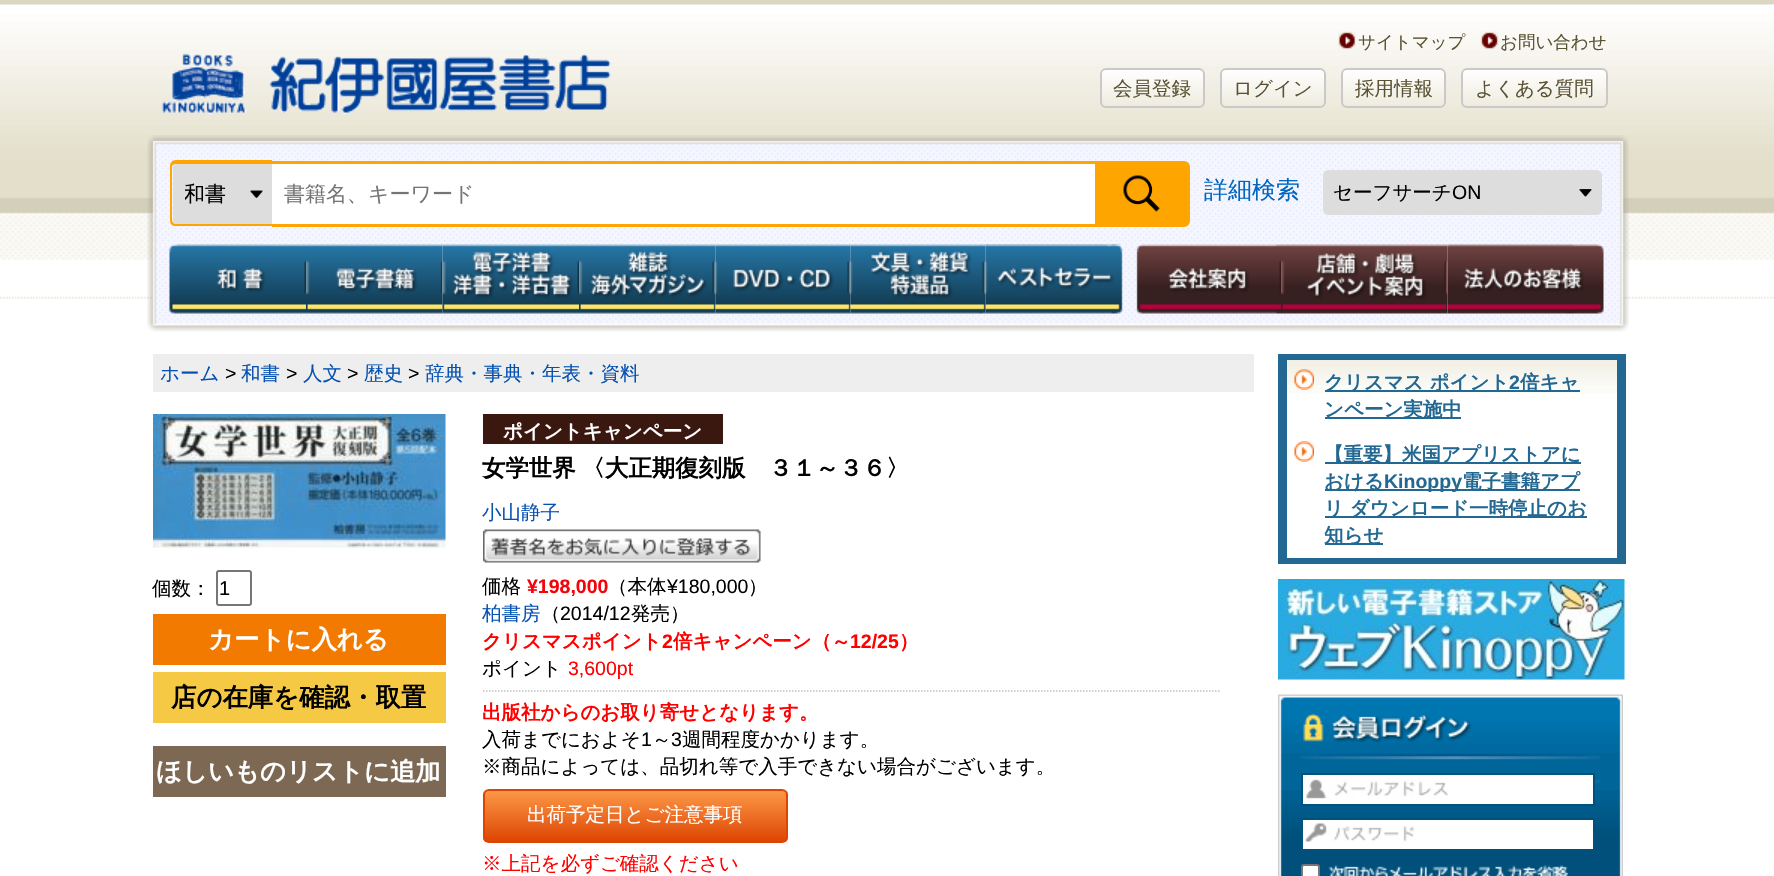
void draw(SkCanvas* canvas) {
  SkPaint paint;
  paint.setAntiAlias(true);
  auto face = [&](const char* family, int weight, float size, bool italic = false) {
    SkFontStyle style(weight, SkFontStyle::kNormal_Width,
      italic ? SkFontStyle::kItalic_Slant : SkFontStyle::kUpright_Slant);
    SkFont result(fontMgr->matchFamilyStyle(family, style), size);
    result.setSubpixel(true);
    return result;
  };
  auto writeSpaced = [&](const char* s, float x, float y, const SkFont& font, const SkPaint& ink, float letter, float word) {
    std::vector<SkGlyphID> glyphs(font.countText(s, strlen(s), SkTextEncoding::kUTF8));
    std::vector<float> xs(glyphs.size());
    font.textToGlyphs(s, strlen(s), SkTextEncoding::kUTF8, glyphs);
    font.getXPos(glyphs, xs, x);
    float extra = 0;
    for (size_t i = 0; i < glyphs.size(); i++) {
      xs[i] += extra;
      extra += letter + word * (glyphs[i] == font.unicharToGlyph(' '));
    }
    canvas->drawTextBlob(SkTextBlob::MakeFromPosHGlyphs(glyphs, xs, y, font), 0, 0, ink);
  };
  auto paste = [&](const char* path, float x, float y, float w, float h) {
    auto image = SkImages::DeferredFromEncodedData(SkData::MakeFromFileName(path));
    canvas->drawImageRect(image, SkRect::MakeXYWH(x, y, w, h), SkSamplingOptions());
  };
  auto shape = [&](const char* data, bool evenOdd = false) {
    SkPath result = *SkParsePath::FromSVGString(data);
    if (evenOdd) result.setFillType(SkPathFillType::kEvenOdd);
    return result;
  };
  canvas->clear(0xffffffff);
  paste("img/1.png", 0, 0, 1774, 299);
  paste("img/2.png", 1338, 31, 18, 19);
  paste("img/3.png", 1480, 31, 19, 19);
  paste("img/4.png", 161, 53, 450, 62);
  canvas->save();
  canvas->clipPath(shape("M1106 68H1199C1202.5 68 1205 70.5 1205 74V102C1205 105.5 1202.5 108 1199 108H1106C1102.5 108 1100 105.5 1100 102V74C1100 70.5 1102.5 68 1106 68Z"), true);
  {
    const SkColor colors[] = {0xffffffff, 0xffeeebde};
    const float stops[] = {0, 1};
    const SkPoint ends[] = {{1152, 69}, {1152, 107}};
    paint.setShader(SkGradientShader::MakeLinear(ends, colors, stops, 2, SkTileMode::kClamp));
    paint.setAlpha(255);
  }
  canvas->drawRect(SkRect::MakeXYWH(1100, 69, 105, 38), paint);
  canvas->restore();
  paint.setStroke(true);
  paint.setStrokeWidth(2);
  paint.setShader(nullptr);
  paint.setColor(0xffc9c9c9);
  canvas->drawRoundRect(SkRect::MakeXYWH(1101, 69, 103, 38), 5, 5, paint);
  canvas->save();
  canvas->clipPath(shape("M1226 68H1320C1323.5 68 1326 70.5 1326 74V102C1326 105.5 1323.5 108 1320 108H1226C1222.5 108 1220 105.5 1220 102V74C1220 70.5 1222.5 68 1226 68Z"), true);
  paint.setStroke(false);
  {
    const SkColor colors[] = {0xffffffff, 0xffeeebde};
    const float stops[] = {0, 1};
    const SkPoint ends[] = {{1273, 69}, {1273, 107}};
    paint.setShader(SkGradientShader::MakeLinear(ends, colors, stops, 2, SkTileMode::kClamp));
    paint.setAlpha(255);
  }
  canvas->drawRect(SkRect::MakeXYWH(1220, 69, 106, 38), paint);
  canvas->restore();
  paint.setStroke(true);
  paint.setShader(nullptr);
  paint.setColor(0xffc9c9c9);
  canvas->drawRoundRect(SkRect::MakeXYWH(1221, 69, 104, 38), 5, 5, paint);
  canvas->save();
  canvas->clipPath(shape("M1347 68H1440C1443.5 68 1446 70.5 1446 74V102C1446 105.5 1443.5 108 1440 108H1347C1343.5 108 1341 105.5 1341 102V74C1341 70.5 1343.5 68 1347 68Z"), true);
  paint.setStroke(false);
  {
    const SkColor colors[] = {0xffffffff, 0xffeeebde};
    const float stops[] = {0, 1};
    const SkPoint ends[] = {{1394, 69}, {1394, 107}};
    paint.setShader(SkGradientShader::MakeLinear(ends, colors, stops, 2, SkTileMode::kClamp));
    paint.setAlpha(255);
  }
  canvas->drawRect(SkRect::MakeXYWH(1341, 69, 105, 38), paint);
  canvas->restore();
  paint.setStroke(true);
  paint.setShader(nullptr);
  paint.setColor(0xffc9c9c9);
  canvas->drawRoundRect(SkRect::MakeXYWH(1342, 69, 103, 38), 5, 5, paint);
  canvas->save();
  canvas->clipPath(shape("M1467 68H1602C1605.5 68 1608 70.5 1608 74V102C1608 105.5 1605.5 108 1602 108H1467C1463.5 108 1461 105.5 1461 102V74C1461 70.5 1463.5 68 1467 68Z"), true);
  paint.setStroke(false);
  {
    const SkColor colors[] = {0xffffffff, 0xffeeebde};
    const float stops[] = {0, 1};
    const SkPoint ends[] = {{1535, 69}, {1535, 107}};
    paint.setShader(SkGradientShader::MakeLinear(ends, colors, stops, 2, SkTileMode::kClamp));
    paint.setAlpha(255);
  }
  canvas->drawRect(SkRect::MakeXYWH(1461, 69, 147, 38), paint);
  canvas->restore();
  paint.setStroke(true);
  paint.setShader(nullptr);
  paint.setColor(0xffc9c9c9);
  canvas->drawRoundRect(SkRect::MakeXYWH(1462, 69, 145, 38), 5, 5, paint);
  paste("img/5.png", 147, 135, 1482, 110);
  paint.setStroke(false);
  paint.setColor(0xffffa500);
  canvas->drawPath(shape("M176 160H272V226H176C172 226 170 224 170 220V166C170 163 172 160 176 160ZM176 164H272V224H176C174 224 172 222 172 220V166C172 165 174 164 176 164Z", true), paint);
  paint.setColor(0xffdddddd);
  canvas->drawPath(shape("M176 164H272V224H176C174.5 224 173 222.5 173 221V167C173 165.5 174.5 164 176 164Z"), paint);
  paste("img/6.png", 250, 190, 13, 8);
  {
    const struct { float x, y, w, h; SkColor color; } items[] = {
      {272, 161, 823, 3, 0xffffa500},
      {272, 224, 823, 3, 0xffffa500},
      {272, 164, 823, 60, 0xffffffff},
    };
    for (auto [x, y, w, h, color] : items) {
      paint.setColor(color);
      canvas->drawRect(SkRect::MakeXYWH(x, y, w, h), paint);
    }
  }
  paint.setStroke(true);
  paint.setStrokeWidth(3);
  paint.setColor(0xffffa500);
  canvas->drawPath(shape("M1096.5 162.5H1184C1186.5 162.5 1188.5 164.5 1188.5 167V221C1188.5 223.5 1186.5 225.5 1184 225.5H1096.5Z"), paint);
  paint.setStroke(false);
  canvas->drawRect(SkRect::MakeXYWH(1098, 164, 89, 60), paint);
  paste("img/7.png", 1123, 175, 37, 37);
  paint.setColor(0xffdddddd);
  canvas->drawRoundRect(SkRect::MakeXYWH(1323, 170, 279, 45), 6, 6, paint);
  paste("img/8.png", 1579, 189, 13, 8);
  paint.setStroke(true);
  paint.setStrokeWidth(2);
  canvas->drawRoundRect(SkRect::MakeXYWH(1324, 171, 277, 43), 5, 5, paint);
  paste("img/9.png", 147, 244, 1482, 88);
  paste("img/10.png", 169, 244, 137, 70);
  paste("img/11.png", 306, 244, 137, 70);
  paste("img/12.png", 442, 244, 137, 70);
  paste("img/13.png", 579, 244, 137, 70);
  paste("img/14.png", 715, 244, 136, 70);
  paste("img/15.png", 850, 244, 136, 70);
  paste("img/16.png", 985, 244, 138, 70);
  paste("img/17.png", 1136, 244, 145, 70);
  paste("img/18.png", 1281, 244, 167, 70);
  paste("img/19.png", 1447, 244, 157, 70);
  paint.setStroke(false);
  paint.setColor(0xffeeeeee);
  canvas->drawRect(SkRect::MakeXYWH(153, 354, 1101, 38), paint);
  paste("img/20.png", 153, 414, 293, 134);
  paint.setStroke(true);
  paint.setColor(0xff767676);
  canvas->drawRoundRect(SkRect::MakeXYWH(217, 571, 34, 34), 2, 2, paint);
  paint.setStroke(false);
  {
    const struct { float x, y, w, h; SkColor color; } items[] = {
      {153, 614, 293, 51, 0xfff27a00},
      {153, 672, 293, 51, 0xfff5c943},
      {153, 746, 293, 51, 0xff7d6854},
      {483, 414, 240, 30, 0xff3a1810},
    };
    for (auto [x, y, w, h, color] : items) {
      paint.setColor(color);
      canvas->drawRect(SkRect::MakeXYWH(x, y, w, h), paint);
    }
  }
  paste("img/21.png", 483, 529, 278, 34);
  paint.setStroke(true);
  paint.setStrokeWidth(1.5f);
  paint.setColor(0xffc1c1c1);
  paint.setPathEffect(SkDashPathEffect::Make({{1.5f, 1.5f}}, 0));
  canvas->drawPath(shape("M483 691H1221"), paint);
  paint.setPathEffect(nullptr);
  canvas->save();
  canvas->clipPath(shape("M489 789H782C785.5 789 788 791.5 788 795V837C788 840.5 785.5 843 782 843H489C485.5 843 483 840.5 483 837V795C483 791.5 485.5 789 489 789Z"), true);
  paint.setStroke(false);
  {
    const SkColor colors[] = {0xfffc9747, 0xffdd4502};
    const float stops[] = {0, 1};
    const SkPoint ends[] = {{635, 791}, {635, 842}};
    paint.setShader(SkGradientShader::MakeLinear(ends, colors, stops, 2, SkTileMode::kClamp));
    paint.setAlpha(255);
  }
  canvas->drawRect(SkRect::MakeXYWH(483, 791, 305, 51), paint);
  canvas->restore();
  paint.setStroke(true);
  paint.setStrokeWidth(2);
  paint.setShader(nullptr);
  paint.setColor(0xffdd4502);
  canvas->drawRoundRect(SkRect::MakeXYWH(484, 790, 303, 52), 5, 5, paint);
  paint.setStroke(false);
  paint.setColor(0xff226892);
  canvas->drawRect(SkRect::MakeXYWH(1278, 354, 348, 210), paint);
  paste("img/22.png", 1287, 360, 330, 198);
  paste("img/23.png", 1294, 369, 20, 21);
  canvas->drawRect(SkRect::MakeXYWH(1325, 390, 255, 2), paint);
  canvas->drawRect(SkRect::MakeXYWH(1325, 417, 136, 2), paint);
  paste("img/24.png", 1294, 441, 20, 21);
  {
    const struct { float x, y, w, h; SkColor color; } items[] = {
      {1325, 462, 256, 2, 0xff226892},
      {1325, 489, 255, 2, 0xff226892},
      {1325, 516, 262, 2, 0xff226892},
      {1325, 543, 58, 2, 0xff226892},
    };
    for (auto [x, y, w, h, color] : items) {
      paint.setColor(color);
      canvas->drawRect(SkRect::MakeXYWH(x, y, w, h), paint);
    }
  }
  paste("img/25.png", 1278, 579, 347, 101);
  paste("img/26.png", 1278, 694, 345, 182);
  paste("img/27.png", 1303, 713, 169, 30);
  paste("img/28.png", 1281, 778, 340, 98);
  paint.setColor(0xffffffff);
  canvas->drawRect(SkRect::MakeXYWH(1303, 775, 290, 29), paint);
  paste("img/29.png", 1306, 779, 142, 20);
  paint.setStroke(true);
  paint.setColor(0xff01517c);
  canvas->drawRect(SkRect::MakeXYWH(1302, 774, 292, 31), paint);
  paint.setStroke(false);
  paint.setColor(0xffffffff);
  canvas->drawRect(SkRect::MakeXYWH(1303, 820, 290, 29), paint);
  paste("img/30.png", 1305, 823, 110, 19);
  paint.setStroke(true);
  paint.setColor(0xff01517c);
  canvas->drawRect(SkRect::MakeXYWH(1302, 819, 292, 31), paint);
  paint.setStroke(false);
  paint.setColor(0xffffffff);
  canvas->drawRoundRect(SkRect::MakeXYWH(1302, 865, 17, 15), 2, 2, paint);
  paint.setStroke(true);
  paint.setColor(0xff767676);
  canvas->drawRoundRect(SkRect::MakeXYWH(1302, 865, 17, 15), 2, 2, paint);
  paste("img/31.png", 1328, 865, 240, 11);
  auto f0 = face("WenQuanYi Zen Hei", 500, 17.5f);
  paint.setStroke(false);
  paint.setColor(0xff595233);
  canvas->drawString("サイトマップ", 1358, 48, f0, paint);
  canvas->drawString("お問い合わせ", 1500, 48, f0, paint);
  auto f1 = face("WenQuanYi Zen Hei", 500, 19.5f);
  {
    const struct { const char* s; float x, y; } items[] = {
      {"会員登録", 1113, 95},
      {"ログイン", 1233, 95},
      {"採用情報", 1355, 95},
      {"よくある質問", 1475, 95},
    };
    for (auto [s, x, y] : items) {
      canvas->drawString(s, x, y, f1, paint);
    }
  }
  canvas->save();
  canvas->clipRect(SkRect::MakeXYWH(185, 182, 75, 24));
  auto f2 = face("WenQuanYi Zen Hei", 500, 21);
  paint.setColor(0xff000000);
  canvas->drawString("和書", 184, 201, f2, paint);
  canvas->restore();
  paint.setColor(0xff757575);
  canvas->drawString("書籍名、キーワード", 284, 201, f2, paint);
  auto f3 = face("WenQuanYi Zen Hei", 500, 24);
  paint.setColor(0xff0066c0);
  canvas->drawString("詳細検索", 1204, 198, f3, paint);
  paint.setColor(0xff000000);
  canvas->drawString("セーフサーチ", 1333, 199, f1, paint);
  auto f4 = face("Liberation Sans", 400, 19.5f);
  canvas->drawString("ON", 1452, 199, f4, paint);
  paint.setColor(0xff0551b1);
  canvas->drawString("ホーム", 160, 380, f1, paint);
  paint.setColor(0xff000000);
  canvas->drawString(">", 225, 380, f4, paint);
  paint.setColor(0xff0551b1);
  canvas->drawString("和書", 241, 380, f1, paint);
  paint.setColor(0xff000000);
  canvas->drawString(">", 286, 380, f4, paint);
  paint.setColor(0xff0551b1);
  canvas->drawString("人文", 303, 380, f1, paint);
  paint.setColor(0xff000000);
  canvas->drawString(">", 347, 380, f4, paint);
  paint.setColor(0xff0551b1);
  canvas->drawString("歴史", 364, 380, f1, paint);
  paint.setColor(0xff000000);
  canvas->drawString(">", 408, 380, f4, paint);
  paint.setColor(0xff0551b1);
  canvas->drawString("辞典・事典・年表・資料", 425, 380, f1, paint);
  paint.setColor(0xff000000);
  canvas->drawString("個数：", 152, 595, f1, paint);
  auto f5 = face("Liberation Sans", 400, 20);
  canvas->drawString("1", 219, 595, f5, paint);
  auto f6 = face("WenQuanYi Zen Hei", 700, 25.4f);
  paint.setColor(0xffffffff);
  canvas->drawString("カートに入れる", 208, 648, f6, paint);
  paint.setColor(0xff000000);
  canvas->drawString("店の在庫を確認・取置", 171, 706, f6, paint);
  paint.setColor(0xffffffff);
  canvas->drawString("ほしいものリストに追加", 156, 780, f6, paint);
  auto f7 = face("WenQuanYi Zen Hei", 700, 19.5f);
  canvas->drawString("ポイントキャンペーン", 503, 438, f7, paint);
  auto f8 = face("WenQuanYi Zen Hei", 700, 23.4f);
  paint.setColor(0xff000000);
  writeSpaced("女学世界 〈大正期復刻版　３１～３６〉", 482, 476, f8, paint, 0, -1);
  paint.setColor(0xff0551b1);
  canvas->drawString("小山静子", 482, 519, f1, paint);
  paint.setColor(0xff000000);
  canvas->drawString("価格", 482, 593, f1, paint);
  auto f9 = face("Liberation Sans", 700, 19.5f);
  paint.setColor(0xfff4030a);
  canvas->drawString("¥198,000", 527, 593, f9, paint);
  paint.setColor(0xff000000);
  canvas->drawString("（本体", 608, 593, f1, paint);
  canvas->drawString("¥180,000", 667, 593, f4, paint);
  canvas->drawString("）", 748, 593, f1, paint);
  paint.setColor(0xff0551b1);
  canvas->drawString("柏書房", 482, 620, f1, paint);
  paint.setColor(0xff000000);
  canvas->drawString("（", 541, 620, f1, paint);
  canvas->drawString("2014/12", 560, 620, f4, paint);
  canvas->drawString("発売）", 631, 620, f1, paint);
  paint.setColor(0xffff0000);
  canvas->drawString("クリスマスポイント", 482, 648, f7, paint);
  canvas->drawString("2", 662, 648, f9, paint);
  canvas->drawString("倍キャンペーン（～", 673, 648, f7, paint);
  canvas->drawString("12/25", 850, 648, f9, paint);
  canvas->drawString("）", 899, 648, f7, paint);
  paint.setColor(0xff000000);
  canvas->drawString("ポイント", 482, 675, f1, paint);
  paint.setColor(0xffff0000);
  canvas->drawString("3,600pt", 568, 675, f4, paint);
  canvas->drawString("出版社からのお取り寄せとなります。", 482, 719, f7, paint);
  paint.setColor(0xff000000);
  canvas->drawString("入荷までにおよそ", 482, 746, f1, paint);
  canvas->drawString("1", 641, 746, f4, paint);
  canvas->drawString("～", 652, 746, f1, paint);
  canvas->drawString("3", 671, 746, f4, paint);
  canvas->drawString("週間程度かかります。", 682, 746, f1, paint);
  canvas->drawString("※商品によっては、品切れ等で入手できない場合がございます。", 482, 773, f1, paint);
  paint.setColor(0xffffffff);
  canvas->drawString("出荷予定日とご注意事項", 527, 821, f1, paint);
  paint.setColor(0xffff0000);
  canvas->drawString("※上記を必ずご確認ください", 482, 870, f1, paint);
  paint.setColor(0xff226892);
  canvas->drawString("クリスマス ポイント", 1324, 389, f7, paint);
  canvas->drawString("2", 1509, 389, f9, paint);
  {
    const struct { const char* s; float x, y; } items[] = {
      {"倍キャ", 1520, 389},
      {"ンペーン実施中", 1324, 416},
      {"【重要】米国アプリストアに", 1324, 461},
      {"おける", 1324, 488},
    };
    for (auto [s, x, y] : items) {
      canvas->drawString(s, x, y, f7, paint);
    }
  }
  canvas->drawString("Kinoppy", 1384, 488, f9, paint);
  {
    const struct { const char* s; float x, y; } items[] = {
      {"電子書籍アプ", 1462, 488},
      {"リ ダウンロード一時停止のお", 1324, 515},
      {"知らせ", 1324, 542},
    };
    for (auto [s, x, y] : items) {
      canvas->drawString(s, x, y, f7, paint);
    }
  }
}
